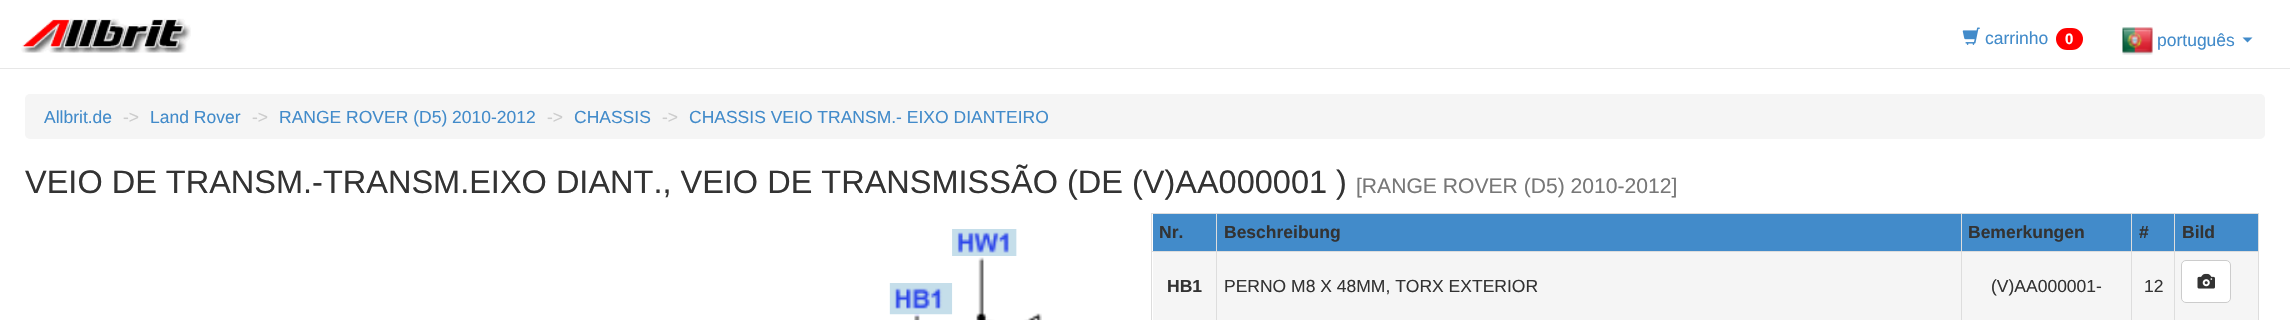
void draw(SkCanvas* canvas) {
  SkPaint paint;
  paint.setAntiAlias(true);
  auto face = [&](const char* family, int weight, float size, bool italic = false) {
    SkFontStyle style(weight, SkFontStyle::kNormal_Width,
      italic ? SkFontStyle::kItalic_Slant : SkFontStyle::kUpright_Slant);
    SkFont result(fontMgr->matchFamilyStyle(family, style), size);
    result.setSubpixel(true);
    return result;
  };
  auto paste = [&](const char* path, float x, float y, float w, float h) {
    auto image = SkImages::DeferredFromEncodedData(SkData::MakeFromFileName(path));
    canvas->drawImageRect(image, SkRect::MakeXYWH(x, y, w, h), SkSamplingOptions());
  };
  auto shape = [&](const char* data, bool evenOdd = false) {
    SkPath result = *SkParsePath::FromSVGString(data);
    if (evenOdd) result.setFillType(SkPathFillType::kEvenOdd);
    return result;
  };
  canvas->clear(0xffffffff);
  paint.setColor(0xffe7e7e7);
  canvas->drawRect(SkRect::MakeXYWH(0, 68, 2290, 1), paint);
  paste("img/1.png", 21, 18, 170, 35);
  paste("img/2.png", 1962, 27, 18, 18);
  paint.setColor(0xffff0000);
  canvas->drawRoundRect(SkRect::MakeXYWH(2056, 28, 27, 22), 11, 11, paint);
  paste("img/3.png", 2122, 27, 31, 28);
  paint.setColor(0xff428bca);
  canvas->drawPath(shape("M2242.5 37.5H2252.5L2247.5 42.5Z"), paint);
  paint.setColor(0xfff5f5f5);
  canvas->drawRoundRect(SkRect::MakeXYWH(25, 94, 2240, 45), 5, 5, paint);
  paste("img/4.png", 889, 229, 153, 91);
  {
    const struct { float x, y, w, h; SkColor color; } items[] = {
      {1151, 213, 1108, 1, 0xffdddddd},
      {2258, 213, 1, 107, 0xffdddddd},
      {1151, 213, 1, 107, 0xffdddddd},
      {1153, 214, 1105, 37, 0xff428bca},
      {1153, 252, 808, 68, 0xfff5f5f5},
      {2174, 251, 85, 1, 0xffdddddd},
      {2174, 251, 1, 69, 0xffdddddd},
      {2131, 251, 44, 1, 0xffdddddd},
      {2131, 251, 1, 69, 0xffdddddd},
      {1961, 251, 172, 1, 0xffdddddd},
      {1961, 251, 1, 69, 0xffdddddd},
      {1216, 251, 747, 1, 0xffdddddd},
      {1216, 251, 1, 69, 0xffdddddd},
      {1151, 251, 67, 1, 0xffdddddd},
      {1216, 213, 1, 40, 0xffdddddd},
      {1961, 213, 1, 40, 0xffdddddd},
      {2131, 213, 1, 40, 0xffdddddd},
      {2174, 213, 1, 40, 0xffdddddd},
      {1962, 252, 169, 68, 0xfff5f5f5},
      {2132, 252, 42, 68, 0xfff5f5f5},
      {2175, 252, 83, 68, 0xfff5f5f5},
    };
    for (auto [x, y, w, h, color] : items) {
      paint.setColor(color);
      canvas->drawRect(SkRect::MakeXYWH(x, y, w, h), paint);
    }
  }
  paint.setColor(0xffffffff);
  canvas->drawRoundRect(SkRect::MakeXYWH(2181.5f, 260.5f, 49, 42), 4.5f, 4.5f, paint);
  paint.setStroke(true);
  paint.setStrokeWidth(1);
  paint.setColor(0xffcccccc);
  canvas->drawRoundRect(SkRect::MakeXYWH(2181.5f, 260.5f, 49, 42), 4.5f, 4.5f, paint);
  paste("img/5.png", 2197, 273, 18, 16);
  auto f0 = face("Liberation Sans", 400, 17.5f);
  paint.setStroke(false);
  paint.setColor(0xff428bca);
  canvas->drawString("carrinho", 1985, 44, f0, paint);
  auto f1 = face("Liberation Sans", 700, 15);
  paint.setColor(0xffffffff);
  canvas->drawString("0", 2065, 44, f1, paint);
  paint.setColor(0xff428bca);
  canvas->drawString("português", 2157, 46, f0, paint);
  canvas->drawString("Allbrit.de", 44, 123, f0, paint);
  paint.setColor(0xffcccccc);
  canvas->drawString("->", 123, 123, f0, paint);
  paint.setColor(0xff428bca);
  canvas->drawString("Land Rover", 150, 123, f0, paint);
  paint.setColor(0xffcccccc);
  canvas->drawString("->", 252, 123, f0, paint);
  paint.setColor(0xff428bca);
  canvas->drawString("RANGE ROVER (D5) 2010-2012", 279, 123, f0, paint);
  paint.setColor(0xffcccccc);
  canvas->drawString("->", 547, 123, f0, paint);
  paint.setColor(0xff428bca);
  canvas->drawString("CHASSIS", 574, 123, f0, paint);
  paint.setColor(0xffcccccc);
  canvas->drawString("->", 662, 123, f0, paint);
  paint.setColor(0xff428bca);
  canvas->drawString("CHASSIS VEIO TRANSM.- EIXO DIANTEIRO", 689, 123, f0, paint);
  auto f2 = face("Liberation Sans", 400, 32.5f);
  paint.setColor(0xff333333);
  canvas->drawString("VEIO DE TRANSM.-TRANSM.EIXO DIANT., VEIO DE TRANSMISSÃO (DE (V)AA000001 )", 25, 193, f2, paint);
  auto f3 = face("Liberation Sans", 400, 21.1f);
  paint.setColor(0xff777777);
  canvas->drawString("[RANGE ROVER (D5) 2010-2012]", 1356, 193, f3, paint);
  auto f4 = face("Liberation Sans", 700, 17.5f);
  paint.setColor(0xff333333);
  {
    const struct { const char* s; float x, y; } items[] = {
      {"Nr.", 1159, 238},
      {"Beschreibung", 1224, 238},
      {"Bemerkungen", 1968, 238},
      {"#", 2139, 238},
      {"Bild", 2182, 238},
      {"HB1", 1167, 292},
    };
    for (auto [s, x, y] : items) {
      canvas->drawString(s, x, y, f4, paint);
    }
  }
  {
    const struct { const char* s; float x, y; } items[] = {
      {"PERNO M8 X 48MM, TORX EXTERIOR", 1224, 292},
      {"(V)AA000001-", 1991, 292},
      {"12", 2144, 292},
    };
    for (auto [s, x, y] : items) {
      canvas->drawString(s, x, y, f0, paint);
    }
  }
}
